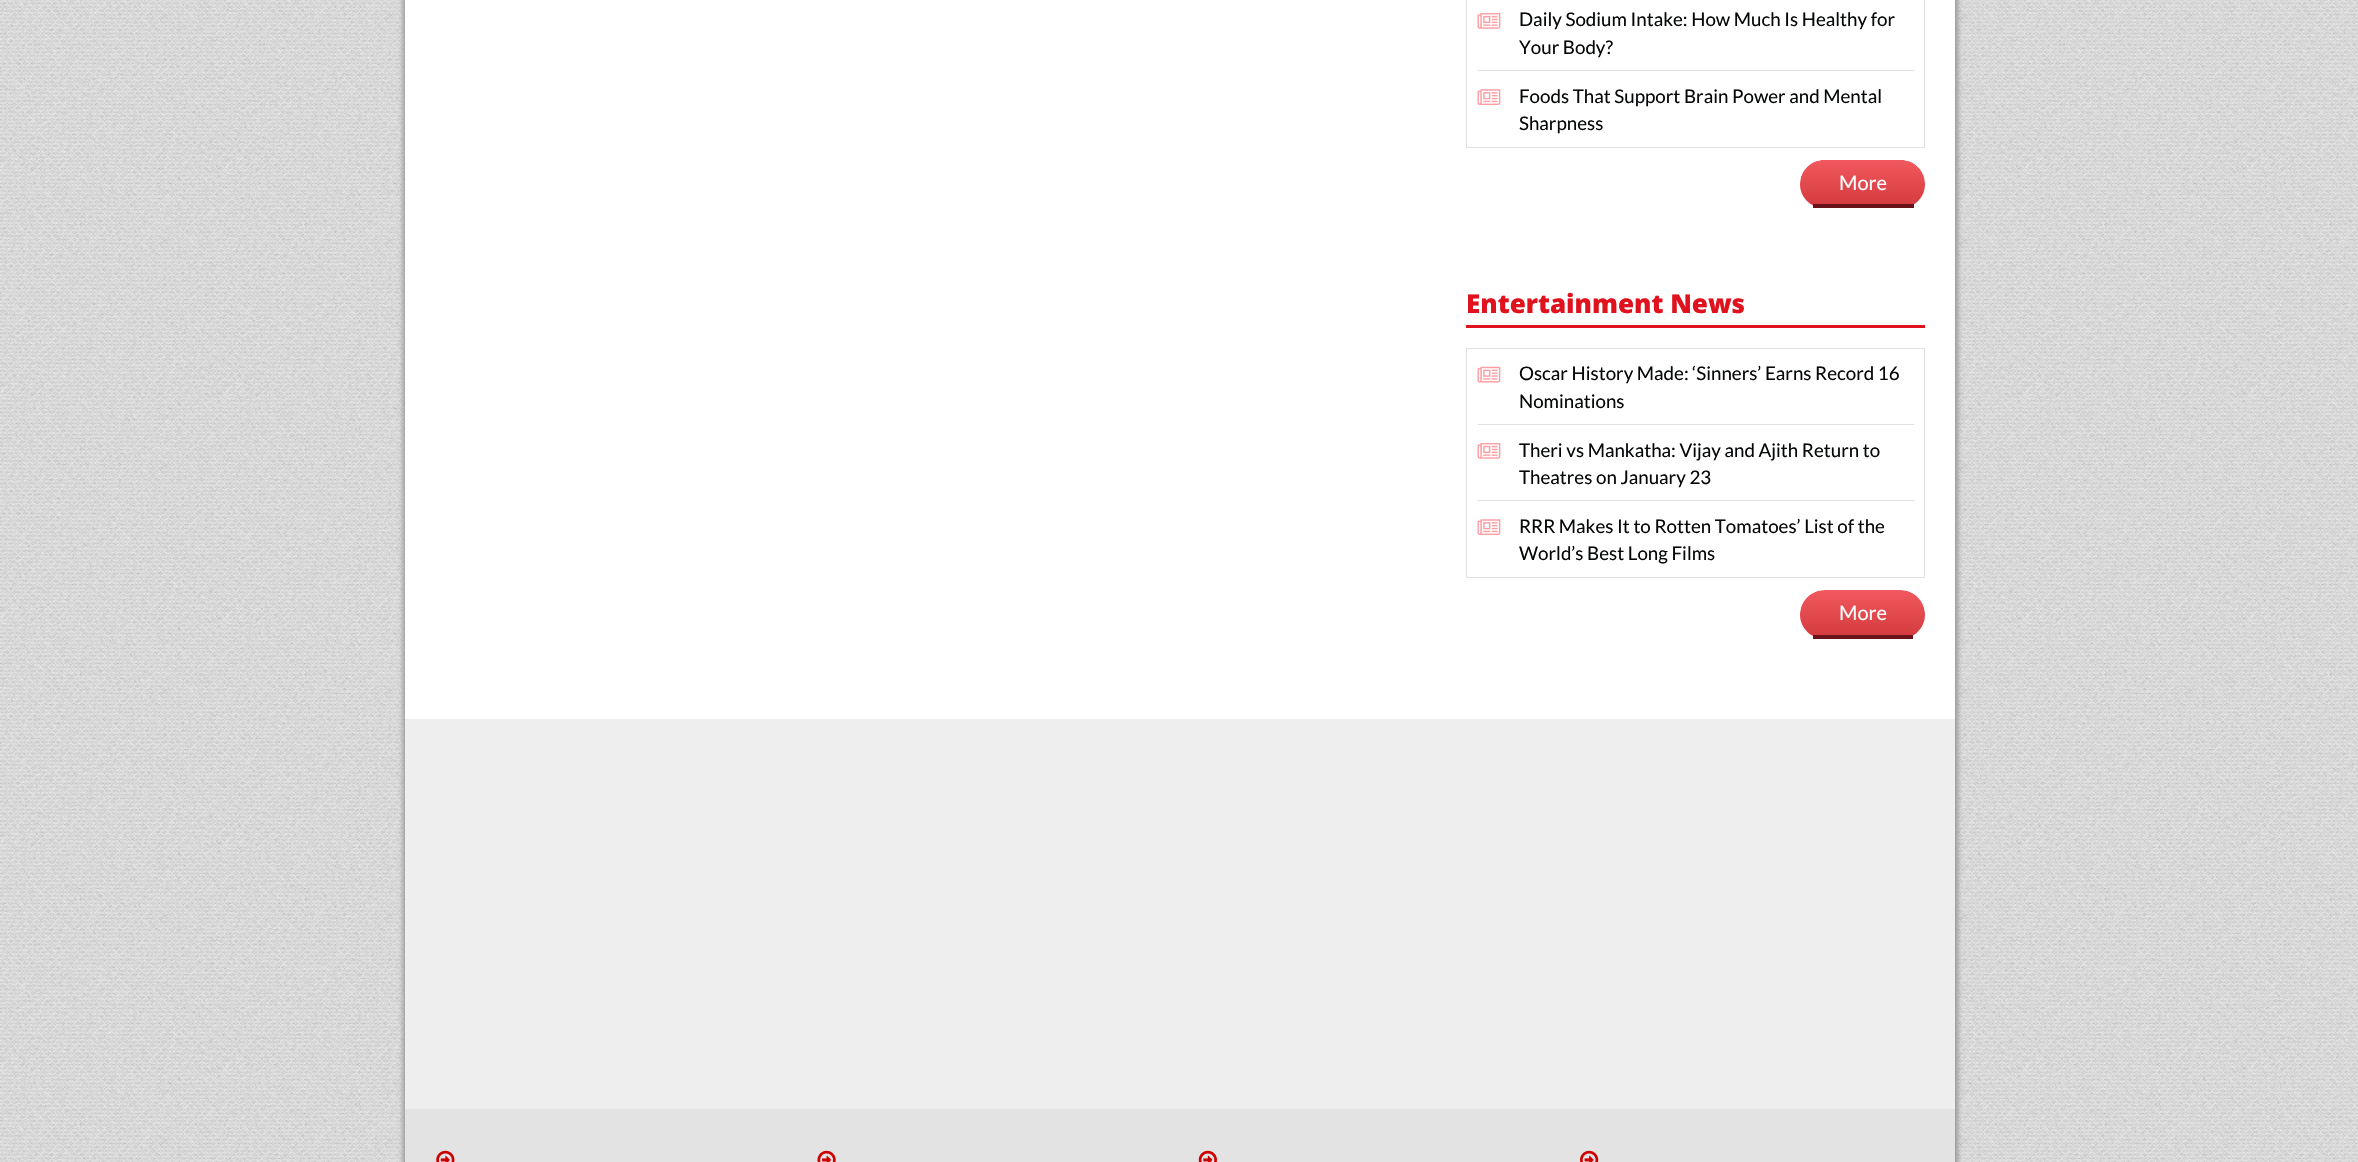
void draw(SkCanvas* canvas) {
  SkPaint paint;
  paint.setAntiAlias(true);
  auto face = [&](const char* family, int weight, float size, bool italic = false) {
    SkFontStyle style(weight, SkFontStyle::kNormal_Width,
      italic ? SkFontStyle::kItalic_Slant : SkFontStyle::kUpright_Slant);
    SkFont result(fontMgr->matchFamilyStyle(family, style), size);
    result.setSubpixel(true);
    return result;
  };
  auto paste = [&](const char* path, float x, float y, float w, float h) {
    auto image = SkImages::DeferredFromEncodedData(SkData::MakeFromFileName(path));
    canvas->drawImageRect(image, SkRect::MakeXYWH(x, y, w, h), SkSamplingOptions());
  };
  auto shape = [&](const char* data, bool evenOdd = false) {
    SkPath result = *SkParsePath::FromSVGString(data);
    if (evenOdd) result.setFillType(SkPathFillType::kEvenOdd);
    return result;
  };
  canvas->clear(0xffffffff);
  paste("img/1.png", 0, 0, 2358, 1162);
  paint.setColor(0xff999999);
  paint.setMaskFilter(SkMaskFilter::MakeBlur(kNormal_SkBlurStyle, 2.5f));
  canvas->drawRect(SkRect::MakeXYWH(403, -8, 1540, 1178), paint);
  paint.setMaskFilter(nullptr);
  paint.setMaskFilter(SkMaskFilter::MakeBlur(kNormal_SkBlurStyle, 2.5f));
  canvas->drawRect(SkRect::MakeXYWH(418, -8, 1540, 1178), paint);
  paint.setMaskFilter(nullptr);
  paint.setColor(0xffffffff);
  canvas->drawRect(SkRect::MakeXYWH(405, 0, 1550, 719), paint);
  paint.setStroke(true);
  paint.setStrokeWidth(1);
  paint.setColor(0xffe1e1e1);
  canvas->drawRect(SkRect::MakeXYWH(1466.5f, -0.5f, 458, 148), paint);
  paint.setStroke(false);
  canvas->drawRect(SkRect::MakeXYWH(1478, 70, 436, 1), paint);
  paste("img/2.png", 1477, 13, 24, 16);
  paste("img/3.png", 1477, 89, 24, 16);
  canvas->save();
  canvas->clipPath(shape("M1824 160H1901C1914.5 160 1925 170.5 1925 184C1925 197.5 1914.5 208 1901 208H1824C1810.5 208 1800 197.5 1800 184C1800 170.5 1810.5 160 1824 160Z"), true);
  {
    const SkColor colors[] = {0xfff2595e, 0xffd43c40};
    const float stops[] = {0, 1};
    const SkPoint ends[] = {{1863, 160}, {1863, 204}};
    paint.setShader(SkGradientShader::MakeLinear(ends, colors, stops, 2, SkTileMode::kClamp));
    paint.setAlpha(255);
  }
  canvas->drawPath(shape("M1824 160H1901C1914.5 160 1925 170.5 1925 184V204H1800V184C1800 170.5 1810.5 160 1824 160Z"), paint);
  {
    const SkColor colors[] = {0xfff2595e, 0xffd43c40};
    const float stops[] = {0, 1};
    const SkPoint ends[] = {{1863, 204}, {1863, 248}};
    paint.setShader(SkGradientShader::MakeLinear(ends, colors, stops, 2, SkTileMode::kClamp));
    paint.setAlpha(255);
  }
  canvas->drawRect(SkRect::MakeXYWH(1811, 204, 104, 2), paint);
  canvas->restore();
  paint.setShader(nullptr);
  paint.setColor(0xff6a131b);
  canvas->drawRect(SkRect::MakeXYWH(1813, 204, 101, 4), paint);
  paint.setColor(0xffe0121e);
  canvas->drawRect(SkRect::MakeXYWH(1466, 325, 459, 3), paint);
  paint.setStroke(true);
  paint.setColor(0xffe1e1e1);
  canvas->drawRect(SkRect::MakeXYWH(1466.5f, 348.5f, 458, 229), paint);
  paint.setStroke(false);
  canvas->drawRect(SkRect::MakeXYWH(1478, 424, 436, 1), paint);
  paste("img/4.png", 1477, 366, 24, 17);
  canvas->drawRect(SkRect::MakeXYWH(1478, 500, 436, 1), paint);
  paste("img/2.png", 1477, 443, 24, 16);
  paste("img/3.png", 1477, 519, 24, 16);
  canvas->save();
  canvas->clipPath(shape("M1824.5 590H1900.5C1914 590 1925 601 1925 614.5C1925 628 1914 639 1900.5 639H1824.5C1811 639 1800 628 1800 614.5C1800 601 1811 590 1824.5 590Z"), true);
  {
    const SkColor colors[] = {0xfff2595e, 0xffd43c40};
    const float stops[] = {0, 1};
    const SkPoint ends[] = {{1863, 590}, {1863, 635}};
    paint.setShader(SkGradientShader::MakeLinear(ends, colors, stops, 2, SkTileMode::kClamp));
    paint.setAlpha(255);
  }
  canvas->drawPath(shape("M1824.5 590H1900.5C1914 590 1925 601 1925 614.5V635H1800V614.5C1800 601 1811 590 1824.5 590Z"), paint);
  {
    const SkColor colors[] = {0xfff2595e, 0xffd43c40};
    const float stops[] = {0, 1};
    const SkPoint ends[] = {{1863, 635}, {1863, 680}};
    paint.setShader(SkGradientShader::MakeLinear(ends, colors, stops, 2, SkTileMode::kClamp));
    paint.setAlpha(255);
  }
  canvas->drawRect(SkRect::MakeXYWH(1811, 635, 103, 1), paint);
  canvas->restore();
  paint.setShader(nullptr);
  {
    const struct { float x, y, w, h; SkColor color; } items[] = {
      {1813, 635, 100, 4, 0xff6a131b},
      {405, 719, 1550, 390, 0xffeeeeee},
      {405, 1109, 1550, 53, 0xffe3e3e3},
    };
    for (auto [x, y, w, h, color] : items) {
      paint.setColor(color);
      canvas->drawRect(SkRect::MakeXYWH(x, y, w, h), paint);
    }
  }
  paste("img/5.png", 436, 1150, 19, 12);
  paste("img/6.png", 817, 1150, 19, 12);
  paste("img/7.png", 1198, 1150, 19, 12);
  paste("img/8.png", 1580, 1150, 19, 12);
  auto f0 = face("Lato", 400, 18.75f);
  paint.setColor(0xff050708);
  {
    const struct { const char* s; float x, y; } items[] = {
      {"Daily Sodium Intake: How Much Is Healthy for", 1519, 26},
      {"Your Body?", 1519, 54},
      {"Foods That Support Brain Power and Mental", 1519, 103},
      {"Sharpness", 1519, 130},
    };
    for (auto [s, x, y] : items) {
      canvas->drawString(s, x, y, f0, paint);
    }
  }
  auto f1 = face("Lato", 400, 20);
  paint.setColor(0xffffffff);
  canvas->drawString("More", 1839, 190, f1, paint);
  auto f2 = face("Open Sans", 800, 26);
  paint.setColor(0xffe0121e);
  canvas->drawString("Entertainment News", 1466, 313, f2, paint);
  paint.setColor(0xff050708);
  {
    const struct { const char* s; float x, y; } items[] = {
      {"Oscar History Made: ‘Sinners’ Earns Record 16", 1519, 380},
      {"Nominations", 1519, 408},
      {"Theri vs Mankatha: Vijay and Ajith Return to", 1519, 457},
      {"Theatres on January 23", 1519, 484},
      {"RRR Makes It to Rotten Tomatoes’ List of the", 1519, 533},
      {"World’s Best Long Films", 1519, 560},
    };
    for (auto [s, x, y] : items) {
      canvas->drawString(s, x, y, f0, paint);
    }
  }
  paint.setColor(0xffffffff);
  canvas->drawString("More", 1839, 620, f1, paint);
}
